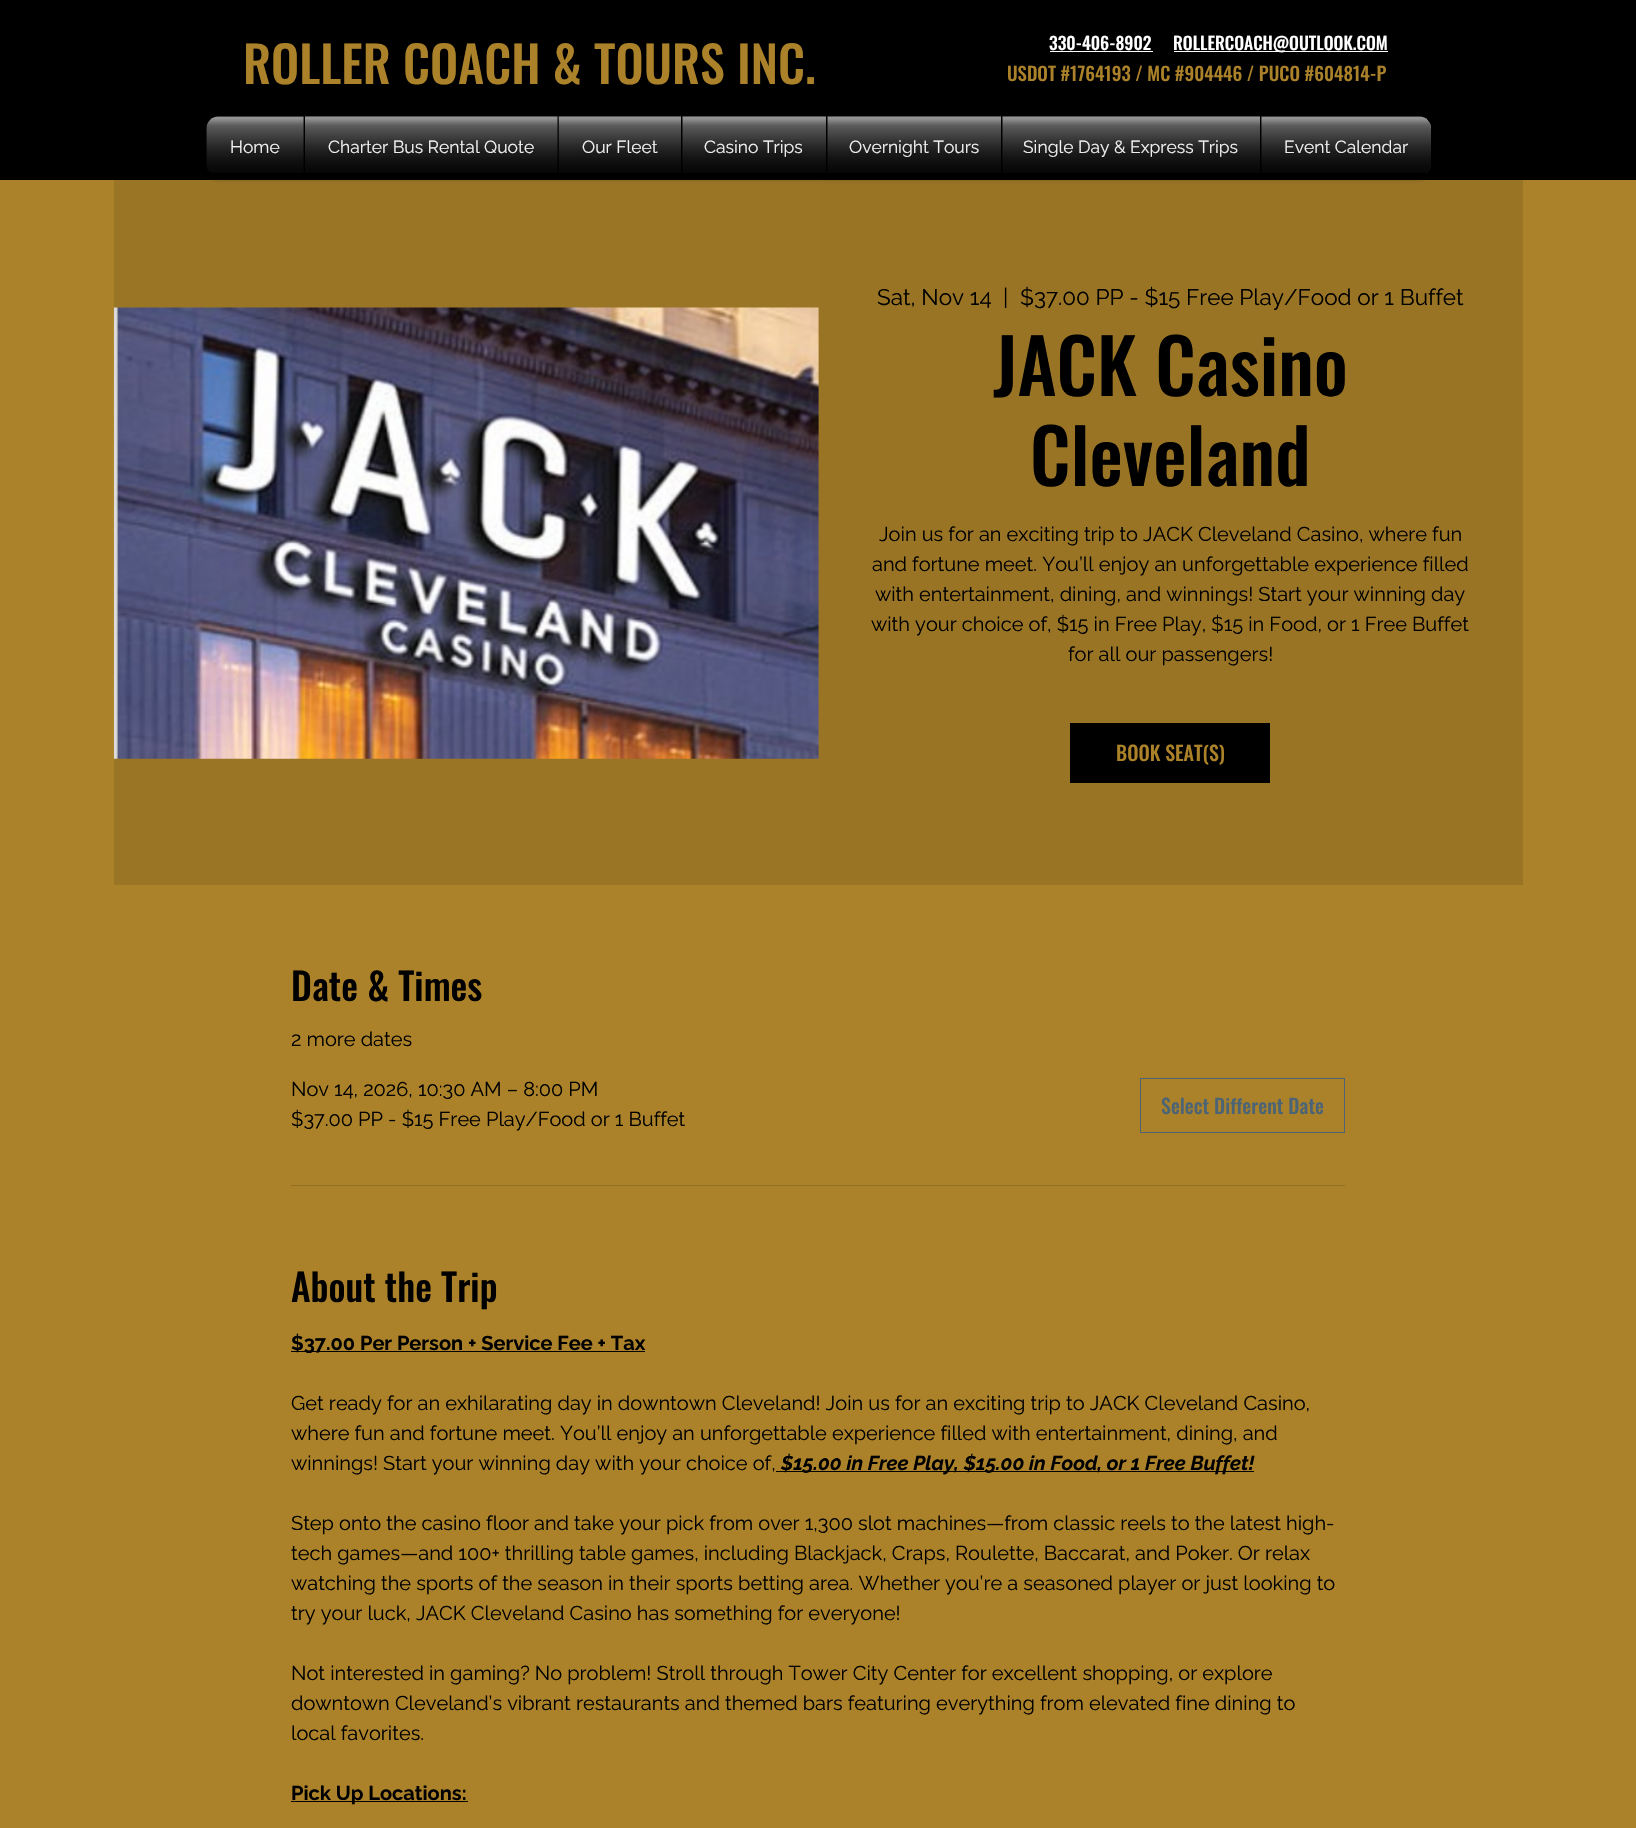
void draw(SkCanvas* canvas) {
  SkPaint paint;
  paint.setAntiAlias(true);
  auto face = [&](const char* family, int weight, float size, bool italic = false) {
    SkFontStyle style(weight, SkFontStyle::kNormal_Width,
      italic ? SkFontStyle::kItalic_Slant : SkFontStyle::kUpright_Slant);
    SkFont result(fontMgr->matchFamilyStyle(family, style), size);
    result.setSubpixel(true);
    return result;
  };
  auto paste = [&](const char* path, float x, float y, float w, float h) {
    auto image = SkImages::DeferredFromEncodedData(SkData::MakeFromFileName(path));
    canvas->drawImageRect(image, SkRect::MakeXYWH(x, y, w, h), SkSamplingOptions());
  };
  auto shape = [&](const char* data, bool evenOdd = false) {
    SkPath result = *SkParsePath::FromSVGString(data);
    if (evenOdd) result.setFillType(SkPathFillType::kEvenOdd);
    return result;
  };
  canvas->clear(0xff000000);
  {
    const struct { float x, y, w, h; SkColor color; } items[] = {
      {1050, 51, 103, 1, 0xffffffff},
      {1174, 51, 214, 1, 0xffffffff},
      {0, 180, 1636, 1648, 0xffab8229},
      {114, 180, 705, 705, 0xff9a7526},
      {819, 180, 704, 705, 0xff9a7425},
    };
    for (auto [x, y, w, h, color] : items) {
      paint.setColor(color);
      canvas->drawRect(SkRect::MakeXYWH(x, y, w, h), paint);
    }
  }
  paint.setColor(0x99000000);
  paint.setMaskFilter(SkMaskFilter::MakeBlur(kNormal_SkBlurStyle, 2.5f));
  canvas->drawRoundRect(SkRect::MakeXYWH(206, 118, 1225, 60), 13, 13, paint);
  paint.setMaskFilter(nullptr);
  paste("img/1.png", 206, 116, 1225, 57);
  paint.setColor(0xff000000);
  canvas->drawPath(shape("M219 116H304V176H219C212 176 206 170 206 163V129C206 122 212 116 219 116Z"), paint);
  canvas->drawRect(SkRect::MakeXYWH(304, 116, 956, 57), paint);
  canvas->drawPath(shape("M1260 116H1418C1425 116 1431 122 1431 129V163C1431 170 1425 176 1418 176H1260Z"), paint);
  paste("img/16.png", 113, 307, 706, 452);
  canvas->drawRect(SkRect::MakeXYWH(1070, 723, 200, 60), paint);
  paint.setStroke(true);
  paint.setStrokeWidth(1);
  paint.setColor(0xff4c6474);
  canvas->drawRect(SkRect::MakeXYWH(1140.5f, 1078.5f, 204, 54), paint);
  paint.setStroke(false);
  {
    const struct { float x, y, w, h; SkColor color; } items[] = {
      {291, 1185, 1054, 1, 0xff916f23},
      {291, 1351, 354, 1, 0xff000000},
      {776, 1471, 478, 1, 0xff000000},
      {291, 1801, 177, 1, 0xff000000},
    };
    for (auto [x, y, w, h, color] : items) {
      paint.setColor(color);
      canvas->drawRect(SkRect::MakeXYWH(x, y, w, h), paint);
    }
  }
  auto f0 = face("Oswald", 500, 50);
  paint.setColor(0xffab8229);
  canvas->drawString("ROLLER COACH & TOURS INC.", 243, 84, f0, paint);
  auto f1 = face("Oswald", 500, 17.5f);
  paint.setColor(0xffffffff);
  canvas->drawString("330-406-8902", 1049, 50, f1, paint);
  canvas->drawString("ROLLERCOACH@OUTLOOK.COM", 1173, 50, f1, paint);
  auto f2 = face("Oswald", 500, 18.75f);
  paint.setColor(0xffab8229);
  canvas->drawString("USDOT #1764193 / MC #904446 / PUCO #604814-P", 1007, 81, f2, paint);
  auto f3 = face("Raleway", 400, 17.5f);
  paint.setColor(0xffffffff);
  canvas->drawString("Home", 230, 153, f3, paint);
  paste("img/2.png", 206, 116, 98, 57);
  paste("img/3.png", 231, 140, 48, 14);
  canvas->drawString("Charter Bus Rental Quote", 328, 153, f3, paint);
  paste("img/4.png", 305, 116, 253, 57);
  paste("img/5.png", 328, 140, 206, 14);
  canvas->drawString("Our Fleet", 582, 153, f3, paint);
  paste("img/6.png", 558, 116, 123, 57);
  paste("img/7.png", 582, 140, 75, 14);
  canvas->drawString("Casino Trips", 704, 153, f3, paint);
  paste("img/8.png", 682, 116, 144, 57);
  paste("img/9.png", 705, 140, 98, 17);
  canvas->drawString("Overnight Tours", 849, 153, f3, paint);
  paste("img/10.png", 827, 116, 174, 57);
  paste("img/11.png", 849, 140, 130, 17);
  canvas->drawString("Single Day & Express Trips", 1023, 153, f3, paint);
  paste("img/12.png", 1002, 116, 258, 57);
  paste("img/13.png", 1024, 140, 214, 17);
  canvas->drawString("Event Calendar", 1284, 153, f3, paint);
  paste("img/14.png", 1261, 116, 170, 57);
  paste("img/15.png", 1285, 140, 123, 14);
  auto f4 = face("Raleway", 400, 22.5f);
  paint.setColor(0xff000000);
  {
    const struct { const char* s; float x, y; } items[] = {
      {"Sat, Nov 14", 877, 305},
      {"|", 1003, 305},
      {"$37.00 PP - $15 Free Play/Food or 1 Buffet", 1020, 305},
    };
    for (auto [s, x, y] : items) {
      canvas->drawString(s, x, y, f4, paint);
    }
  }
  auto f5 = face("Oswald", 500, 75);
  canvas->drawString("JACK Casino", 993, 396, f5, paint);
  canvas->drawString("Cleveland", 1030, 486, f5, paint);
  auto f6 = face("Raleway", 400, 20);
  {
    const struct { const char* s; float x, y; } items[] = {
      {"Join us for an exciting trip to JACK Cleveland Casino, where fun", 879, 541},
      {"and fortune meet. You’ll enjoy an unforgettable experience filled", 872, 571},
      {"with entertainment, dining, and winnings! Start your winning day", 875, 601},
      {"with your choice of, $15 in Free Play, $15 in Food, or 1 Free Buffet", 871, 631},
      {"for all our passengers!", 1068, 661},
    };
    for (auto [s, x, y] : items) {
      canvas->drawString(s, x, y, f6, paint);
    }
  }
  auto f7 = face("Oswald", 500, 20);
  paint.setColor(0xffab8229);
  canvas->drawString("BOOK SEAT(S)", 1116, 761, f7, paint);
  auto f8 = face("Oswald", 500, 37.5f);
  paint.setColor(0xff000000);
  canvas->drawString("Date & Times", 291, 1001, f8, paint);
  {
    const struct { const char* s; float x, y; } items[] = {
      {"2 more dates", 291, 1046},
      {"Nov 14, 2026, 10:30 AM – 8:00 PM", 291, 1096},
      {"$37.00 PP - $15 Free Play/Food or 1 Buffet", 291, 1126},
    };
    for (auto [s, x, y] : items) {
      canvas->drawString(s, x, y, f6, paint);
    }
  }
  paint.setColor(0xff4c6474);
  canvas->drawString("Select Different Date", 1161, 1114, f7, paint);
  paint.setColor(0xff000000);
  canvas->drawString("About the Trip", 291, 1302, f8, paint);
  auto f9 = face("Raleway", 700, 20);
  canvas->drawString("$37.00 Per Person + Service Fee + Tax", 291, 1350, f9, paint);
  {
    const struct { const char* s; float x, y; } items[] = {
      {"Get ready for an exhilarating day in downtown Cleveland! Join us for an exciting trip to JACK Cleveland Casino,", 291, 1410},
      {"where fun and fortune meet. You’ll enjoy an unforgettable experience filled with entertainment, dining, and", 291, 1440},
      {"winnings! Start your winning day with your choice of,", 291, 1470},
    };
    for (auto [s, x, y] : items) {
      canvas->drawString(s, x, y, f6, paint);
    }
  }
  auto f10 = face("Raleway", 700, 20, true);
  canvas->drawString("$15.00 in Free Play, $15.00 in Food, or 1 Free Buffet!", 781, 1470, f10, paint);
  {
    const struct { const char* s; float x, y; } items[] = {
      {"Step onto the casino floor and take your pick from over 1,300 slot machines—from classic reels to the latest high-", 291, 1530},
      {"tech games—and 100+ thrilling table games, including Blackjack, Craps, Roulette, Baccarat, and Poker. Or relax", 291, 1560},
      {"watching the sports of the season in their sports betting area. Whether you’re a seasoned player or just looking to", 291, 1590},
      {"try your luck, JACK Cleveland Casino has something for everyone!", 291, 1620},
      {"Not interested in gaming? No problem! Stroll through Tower City Center for excellent shopping, or explore", 291, 1680},
      {"downtown Cleveland’s vibrant restaurants and themed bars featuring everything from elevated fine dining to", 291, 1710},
      {"local favorites.", 291, 1740},
    };
    for (auto [s, x, y] : items) {
      canvas->drawString(s, x, y, f6, paint);
    }
  }
  canvas->drawString("Pick Up Locations:", 291, 1800, f9, paint);
}
